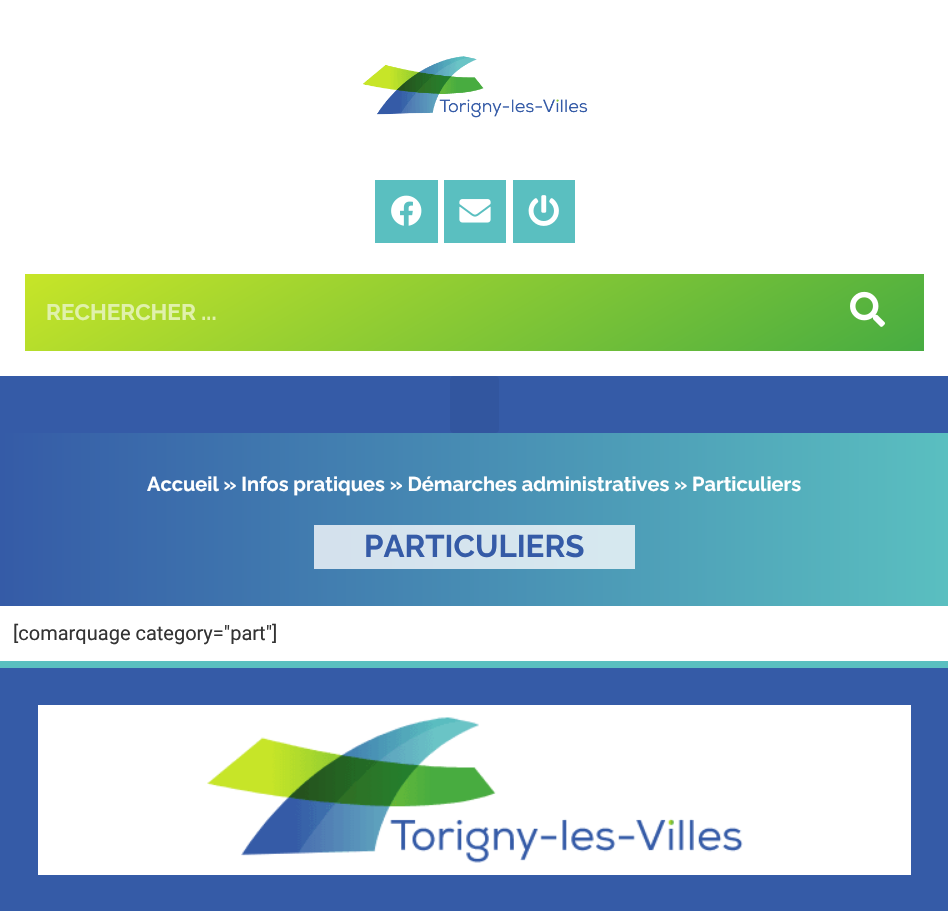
void draw(SkCanvas* canvas) {
  SkPaint paint;
  paint.setAntiAlias(true);
  auto face = [&](const char* family, int weight, float size, bool italic = false) {
    SkFontStyle style(weight, SkFontStyle::kNormal_Width,
      italic ? SkFontStyle::kItalic_Slant : SkFontStyle::kUpright_Slant);
    SkFont result(fontMgr->matchFamilyStyle(family, style), size);
    result.setSubpixel(true);
    return result;
  };
  auto paste = [&](const char* path, float x, float y, float w, float h) {
    auto image = SkImages::DeferredFromEncodedData(SkData::MakeFromFileName(path));
    canvas->drawImageRect(image, SkRect::MakeXYWH(x, y, w, h), SkSamplingOptions());
  };
  canvas->clear(0xffffffff);
  paste("img/1.png", 363, 56, 225, 62);
  paint.setColor(0xff5abfc0);
  canvas->drawRect(SkRect::MakeXYWH(375, 180, 63, 63), paint);
  paste("img/2.png", 391, 195, 31, 31);
  canvas->drawRect(SkRect::MakeXYWH(444, 180, 62, 63), paint);
  paste("img/3.png", 459, 199, 32, 24);
  canvas->drawRect(SkRect::MakeXYWH(513, 180, 62, 63), paint);
  paste("img/4.png", 528, 195, 31, 31);
  {
    const SkColor colors[] = {0xffc7e528, 0xff47ac41};
    const float stops[] = {0, 1};
    const SkPoint ends[] = {{345, 89}, {603, 536}};
    paint.setShader(SkGradientShader::MakeLinear(ends, colors, stops, 2, SkTileMode::kClamp));
    paint.setAlpha(255);
  }
  canvas->drawRect(SkRect::MakeXYWH(25, 274, 899, 77), paint);
  paste("img/5.png", 850, 291, 35, 36);
  paint.setShader(nullptr);
  paint.setColor(0xff355ba7);
  canvas->drawRect(SkRect::MakeXYWH(0, 376, 948, 57), paint);
  paint.setColor(0xff32569f);
  canvas->drawRoundRect(SkRect::MakeXYWH(450, 376, 49, 57), 4, 4, paint);
  {
    const SkColor colors[] = {0xff355ba7, 0xff5abfc0};
    const float stops[] = {0, 1};
    const SkPoint ends[] = {{0, 519}, {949, 519}};
    paint.setShader(SkGradientShader::MakeLinear(ends, colors, stops, 2, SkTileMode::kClamp));
    paint.setAlpha(255);
  }
  canvas->drawRect(SkRect::MakeXYWH(0, 433, 948, 173), paint);
  {
    const SkColor colors[] = {0xffd1d9eb, 0xffd9f0f1};
    const float stops[] = {0, 1};
    const SkPoint ends[] = {{0, 519}, {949, 519}};
    paint.setShader(SkGradientShader::MakeLinear(ends, colors, stops, 2, SkTileMode::kClamp));
    paint.setAlpha(255);
  }
  canvas->drawRect(SkRect::MakeXYWH(314, 525, 321, 44), paint);
  paint.setShader(nullptr);
  {
    const struct { float x, y, w, h; SkColor color; } items[] = {
      {0, 668, 948, 243, 0xff355ba7},
      {0, 661, 948, 7, 0xff5abfc0},
      {38, 705, 873, 170, 0xffffffff},
    };
    for (auto [x, y, w, h, color] : items) {
      paint.setColor(color);
      canvas->drawRect(SkRect::MakeXYWH(x, y, w, h), paint);
    }
  }
  paste("img/6.png", 207, 717, 536, 146);
  auto f0 = face("Raleway", 700, 22.5f);
  paint.setColor(0xffe0f1ab);
  canvas->drawString("RECHERCHER ...", 46, 320, f0, paint);
  auto f1 = face("Raleway", 700, 20);
  paint.setColor(0xffffffff);
  canvas->drawString("Accueil » Infos pratiques » Démarches administratives » Particuliers", 147, 491, f1, paint);
  auto f2 = face("Raleway", 700, 31.25f);
  paint.setColor(0xff355ba7);
  canvas->drawString("PARTICULIERS", 364, 557, f2, paint);
  auto f3 = face("Roboto", 400, 20);
  paint.setColor(0xff333333);
  canvas->drawString("[comarquage category=\"part\"]", 13, 640, f3, paint);
}
